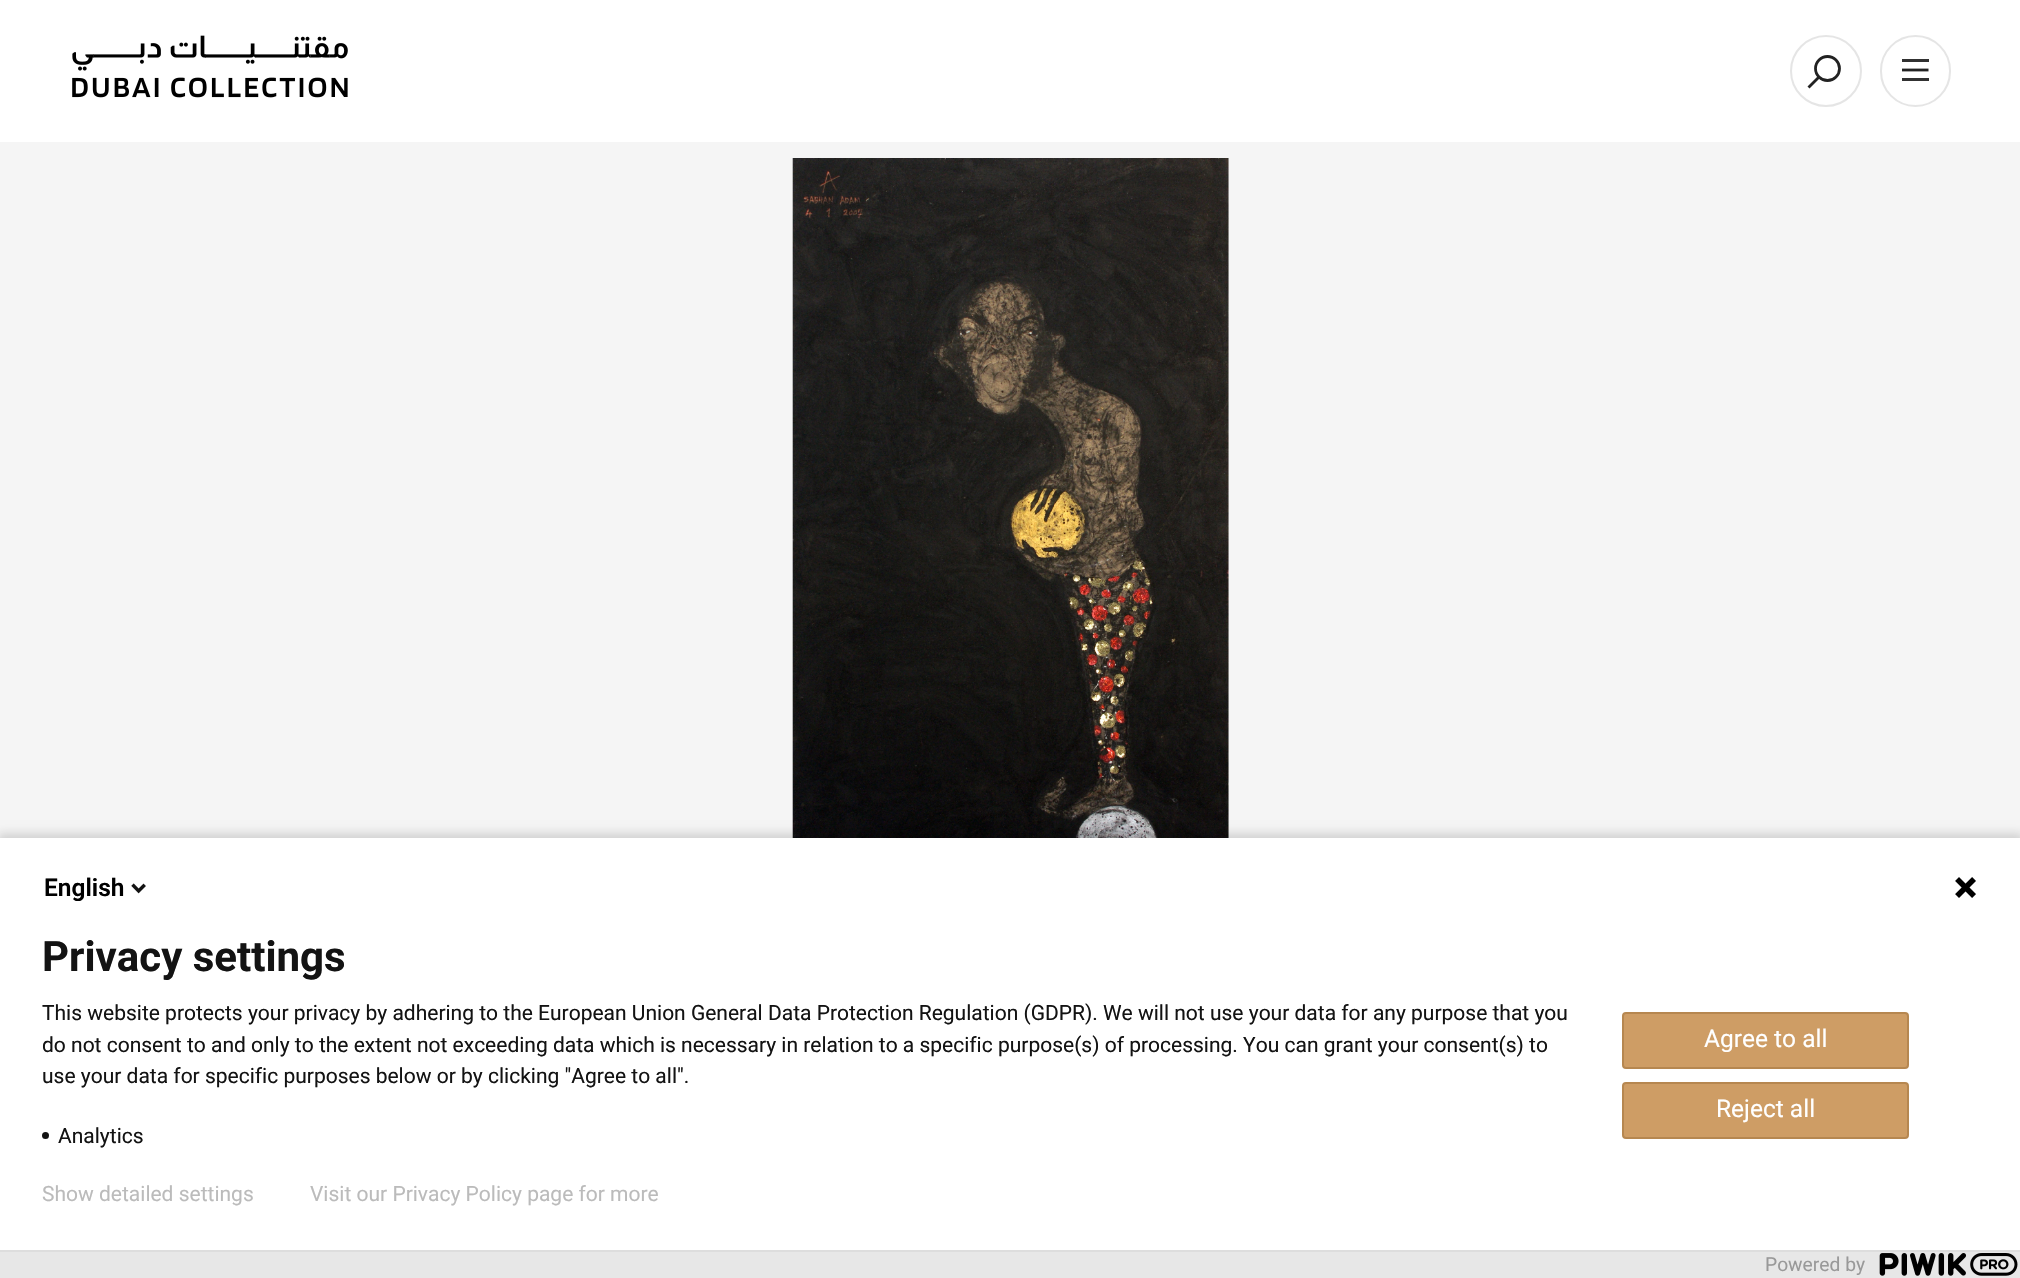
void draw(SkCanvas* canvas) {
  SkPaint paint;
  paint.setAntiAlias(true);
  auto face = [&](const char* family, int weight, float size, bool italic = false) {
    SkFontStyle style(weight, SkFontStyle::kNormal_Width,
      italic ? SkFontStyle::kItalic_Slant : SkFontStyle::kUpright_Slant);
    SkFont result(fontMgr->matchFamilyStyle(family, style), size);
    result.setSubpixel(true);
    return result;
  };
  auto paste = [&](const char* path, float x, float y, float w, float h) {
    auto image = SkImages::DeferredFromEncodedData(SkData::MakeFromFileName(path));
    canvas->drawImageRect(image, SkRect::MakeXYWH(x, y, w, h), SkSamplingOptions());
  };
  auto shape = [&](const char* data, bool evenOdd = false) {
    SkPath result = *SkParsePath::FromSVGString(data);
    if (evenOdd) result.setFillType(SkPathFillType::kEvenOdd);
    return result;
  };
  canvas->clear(0xfff5f5f5);
  paint.setColor(0xffffffff);
  canvas->drawRect(SkRect::MakeXYWH(0, 0, 2020, 142), paint);
  paste("img/1.png", 72, 35, 276, 63);
  paint.setStroke(true);
  paint.setStrokeWidth(2);
  paint.setColor(0xffe5e5e5);
  canvas->drawCircle(1826, 71, 35, paint);
  paint.setStrokeWidth(2.8f);
  paint.setColor(0xff222222);
  canvas->drawPath(shape("M1819.5 76.5L1808.5 87.5"), paint);
  canvas->drawCircle(1827.5f, 68.5f, 12, paint);
  paint.setStrokeWidth(2);
  paint.setColor(0xffe5e5e5);
  canvas->drawRoundRect(SkRect::MakeXYWH(1881, 36, 69, 70), 34.5f, 34.5f, paint);
  paint.setStroke(false);
  paint.setColor(0xff313131);
  canvas->drawRect(SkRect::MakeXYWH(1902, 78, 27, 3), paint);
  paint.setStroke(true);
  paint.setStrokeWidth(2.8f);
  paint.setColor(0xff222222);
  canvas->drawPath(shape("M1902 70H1928.5"), paint);
  paint.setStroke(false);
  paint.setColor(0xff313131);
  canvas->drawRect(SkRect::MakeXYWH(1902, 59, 27, 3), paint);
  paste("img/2.png", 792, 158, 437, 680);
  paint.setColor(0x24000000);
  paint.setMaskFilter(SkMaskFilter::MakeBlur(kNormal_SkBlurStyle, 4.5f));
  canvas->drawRect(SkRect::MakeXYWH(-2, 833, 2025, 445), paint);
  paint.setMaskFilter(nullptr);
  paint.setColor(0xffffffff);
  canvas->drawRect(SkRect::MakeXYWH(0, 838, 2020, 412), paint);
  paste("img/3.png", 131, 883, 15, 11);
  paste("img/4.png", 1955, 877, 21, 21);
  paint.setColor(0xff131313);
  canvas->drawCircle(45.5f, 1135.5f, 3.5f, paint);
  paint.setColor(0xffce9d65);
  canvas->drawRoundRect(SkRect::MakeXYWH(1623, 1013, 285, 55), 3, 3, paint);
  paint.setStroke(true);
  paint.setStrokeWidth(2);
  paint.setColor(0xffb68750);
  canvas->drawRoundRect(SkRect::MakeXYWH(1623, 1013, 285, 55), 3, 3, paint);
  paint.setStroke(false);
  paint.setColor(0xffce9d65);
  canvas->drawRoundRect(SkRect::MakeXYWH(1623, 1083, 285, 55), 3, 3, paint);
  paint.setStroke(true);
  paint.setColor(0xffb68750);
  canvas->drawRoundRect(SkRect::MakeXYWH(1623, 1083, 285, 55), 3, 3, paint);
  paint.setStroke(false);
  paint.setColor(0xffe7e7e7);
  canvas->drawRect(SkRect::MakeXYWH(0, 1252, 2020, 26), paint);
  paint.setColor(0xffdddddd);
  canvas->drawRect(SkRect::MakeXYWH(0, 1250, 2020, 2), paint);
  paste("img/5.png", 1879, 1253, 139, 23);
  auto f0 = face("Roboto", 600, 24.5f);
  paint.setColor(0xff000000);
  canvas->drawString("English", 44, 896, f0, paint);
  auto f1 = face("Roboto", 700, 42);
  paint.setColor(0xff131313);
  canvas->drawString("Privacy settings", 42, 971, f1, paint);
  auto f2 = face("Roboto", 400, 21);
  {
    const struct { const char* s; float x, y; } items[] = {
      {"This website protects your privacy by adhering to the European Union General Data Protection Regulation (GDPR). We will not use your data for any purpose that you", 42, 1020},
      {"do not consent to and only to the extent not exceeding data which is necessary in relation to a specific purpose(s) of processing. You can grant your consent(s) to", 42, 1052},
      {"use your data for specific purposes below or by clicking \"Agree to all\".", 42, 1083},
      {"Analytics", 58, 1143},
    };
    for (auto [s, x, y] : items) {
      canvas->drawString(s, x, y, f2, paint);
    }
  }
  auto f3 = face("Roboto", 400, 24.5f);
  paint.setColor(0xffffffff);
  canvas->drawString("Agree to all", 1704, 1047, f3, paint);
  canvas->drawString("Reject all", 1716, 1117, f3, paint);
  paint.setColor(0xffbbbbbb);
  canvas->drawString("Show detailed settings", 42, 1201, f2, paint);
  canvas->drawString("Visit our Privacy Policy page for more", 310, 1201, f2, paint);
  auto f4 = face("Roboto", 400, 19.25f);
  paint.setColor(0xff999999);
  canvas->drawString("Powered by", 1765, 1271, f4, paint);
}
